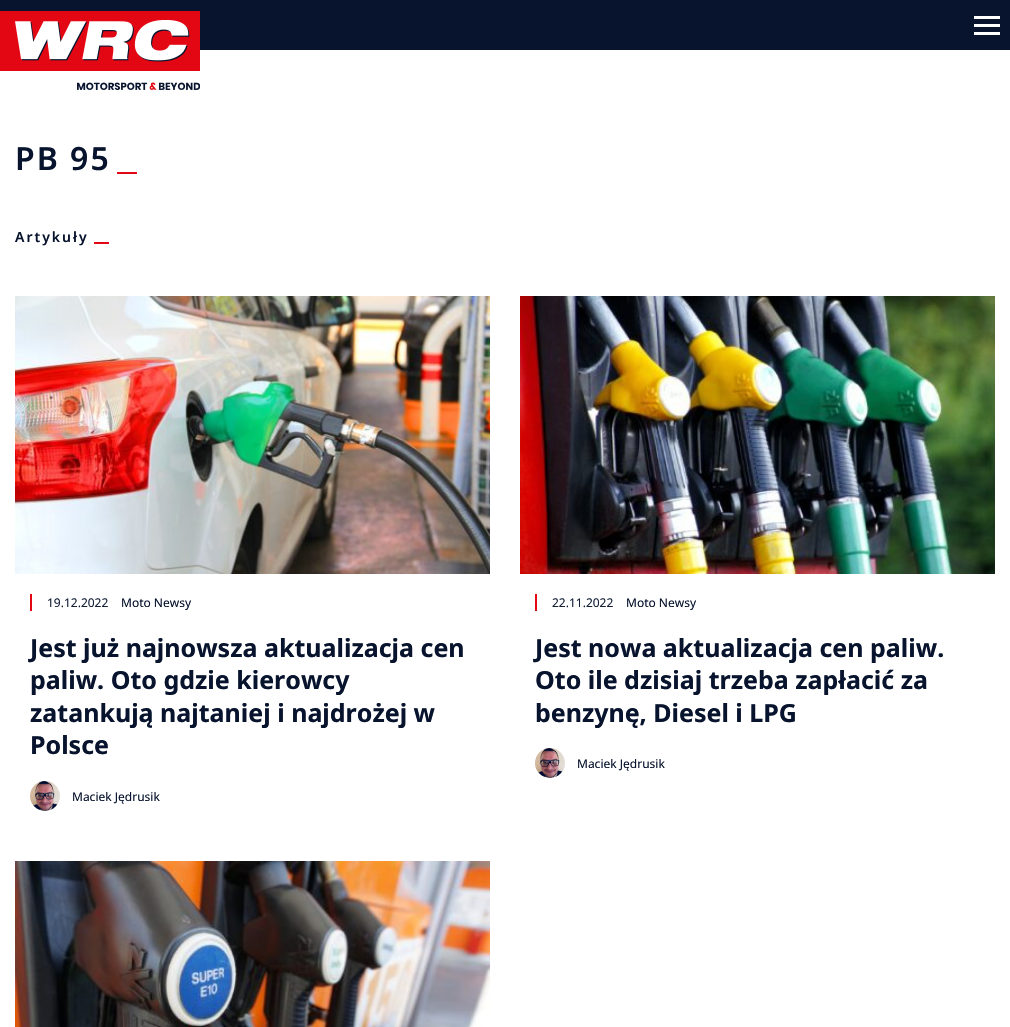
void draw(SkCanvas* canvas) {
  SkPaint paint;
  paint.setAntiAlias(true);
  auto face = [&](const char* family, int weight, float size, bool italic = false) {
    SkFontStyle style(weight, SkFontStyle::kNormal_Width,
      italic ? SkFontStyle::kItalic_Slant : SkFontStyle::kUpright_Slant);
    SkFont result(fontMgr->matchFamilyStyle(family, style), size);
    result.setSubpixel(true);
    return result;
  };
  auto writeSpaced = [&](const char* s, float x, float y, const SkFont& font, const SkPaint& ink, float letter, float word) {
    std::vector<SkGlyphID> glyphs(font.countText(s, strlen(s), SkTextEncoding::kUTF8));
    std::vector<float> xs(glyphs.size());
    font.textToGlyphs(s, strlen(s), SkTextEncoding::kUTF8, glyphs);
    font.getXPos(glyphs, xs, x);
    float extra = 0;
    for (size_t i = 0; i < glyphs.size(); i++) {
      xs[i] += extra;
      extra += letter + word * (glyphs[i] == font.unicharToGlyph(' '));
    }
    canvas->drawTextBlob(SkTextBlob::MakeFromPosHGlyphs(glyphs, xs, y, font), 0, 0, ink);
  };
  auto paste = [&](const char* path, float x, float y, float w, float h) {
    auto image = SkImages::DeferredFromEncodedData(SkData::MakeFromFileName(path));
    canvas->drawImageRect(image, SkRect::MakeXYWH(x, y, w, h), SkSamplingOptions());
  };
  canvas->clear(0xffffffff);
  {
    const struct { float x, y, w, h; SkColor color; } items[] = {
      {0, 0, 1010, 50, 0xff08142e},
      {974, 16, 26, 3, 0xffffffff},
      {974, 24, 26, 3, 0xffffffff},
      {974, 32, 26, 3, 0xffffffff},
      {0, 11, 200, 60, 0xffe30613},
    };
    for (auto [x, y, w, h, color] : items) {
      paint.setColor(color);
      canvas->drawRect(SkRect::MakeXYWH(x, y, w, h), paint);
    }
  }
  paste("img/1.png", 15, 20, 185, 70);
  canvas->drawRect(SkRect::MakeXYWH(117, 172, 20, 2), paint);
  canvas->drawRect(SkRect::MakeXYWH(94, 242, 15, 2), paint);
  paste("img/2.png", 15, 296, 475, 278);
  canvas->drawRect(SkRect::MakeXYWH(30, 594, 2, 17), paint);
  paste("img/3.png", 30, 781, 30, 30);
  paste("img/4.png", 520, 296, 475, 278);
  canvas->drawRect(SkRect::MakeXYWH(535, 594, 2, 17), paint);
  paste("img/5.png", 535, 748, 30, 30);
  paste("img/6.png", 15, 861, 475, 166);
  auto f0 = face("Noto Sans", 600, 32);
  paint.setColor(0xff08142e);
  writeSpaced("PB 95", 15, 170, f0, paint, 2, 0);
  auto f1 = face("Noto Sans", 600, 14);
  writeSpaced("Artykuły", 15, 242, f1, paint, 2, 0);
  auto f2 = face("Noto Sans", 400, 12);
  paint.setColor(0xff142038);
  canvas->drawString("19.12.2022", 47, 607, f2, paint);
  paint.setColor(0xff08142e);
  canvas->drawString("Moto Newsy", 121, 607, f2, paint);
  auto f3 = face("Noto Sans", 700, 25);
  {
    const struct { const char* s; float x, y; } items[] = {
      {"Jest już najnowsza aktualizacja cen", 30, 657},
      {"paliw. Oto gdzie kierowcy", 30, 689},
      {"zatankują najtaniej i najdrożej w", 30, 722},
      {"Polsce", 30, 754},
    };
    for (auto [s, x, y] : items) {
      canvas->drawString(s, x, y, f3, paint);
    }
  }
  canvas->drawString("Maciek Jędrusik", 72, 801, f2, paint);
  paint.setColor(0xff142038);
  canvas->drawString("22.11.2022", 552, 607, f2, paint);
  paint.setColor(0xff08142e);
  canvas->drawString("Moto Newsy", 626, 607, f2, paint);
  {
    const struct { const char* s; float x, y; } items[] = {
      {"Jest nowa aktualizacja cen paliw.", 535, 657},
      {"Oto ile dzisiaj trzeba zapłacić za", 535, 689},
      {"benzynę, Diesel i LPG", 535, 722},
    };
    for (auto [s, x, y] : items) {
      canvas->drawString(s, x, y, f3, paint);
    }
  }
  canvas->drawString("Maciek Jędrusik", 577, 768, f2, paint);
}
